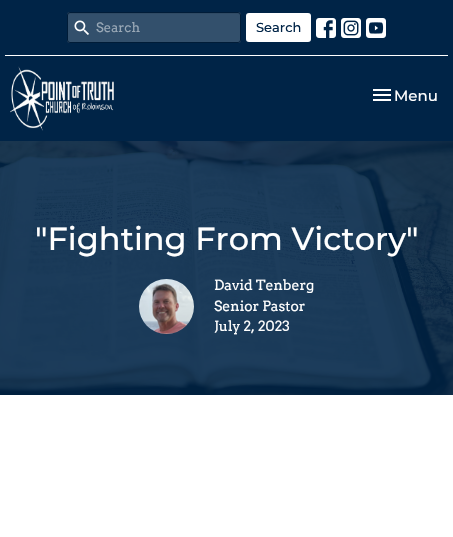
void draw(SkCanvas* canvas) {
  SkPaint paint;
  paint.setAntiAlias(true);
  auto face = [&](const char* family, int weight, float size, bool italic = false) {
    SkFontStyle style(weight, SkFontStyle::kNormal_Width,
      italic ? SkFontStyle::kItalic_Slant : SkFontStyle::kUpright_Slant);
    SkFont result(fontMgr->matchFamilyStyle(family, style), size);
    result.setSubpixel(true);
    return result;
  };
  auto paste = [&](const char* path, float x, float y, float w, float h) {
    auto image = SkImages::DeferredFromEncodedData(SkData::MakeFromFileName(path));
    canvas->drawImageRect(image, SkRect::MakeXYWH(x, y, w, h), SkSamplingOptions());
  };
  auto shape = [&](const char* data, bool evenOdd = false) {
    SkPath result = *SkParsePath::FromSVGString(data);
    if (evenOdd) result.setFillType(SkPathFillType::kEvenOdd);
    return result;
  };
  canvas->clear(0xffffffff);
  paint.setColor(0xff002447);
  canvas->drawRect(SkRect::MakeXYWH(0, 0, 453, 141), paint);
  paint.setColor(0xffffffff);
  canvas->drawRect(SkRect::MakeXYWH(5, 55, 443, 1), paint);
  paint.setColor(0xff33506c);
  canvas->drawRoundRect(SkRect::MakeXYWH(67, 12, 174, 31), 3, 3, paint);
  paint.setColor(0xff2f4a64);
  canvas->drawPath(shape("M70 14H238C239 14 240 15 240 16C240 15 240 13 238 13H69C68 14 68 15 68 16C68 15 69 14 70 14Z"), paint);
  paint.setStroke(true);
  paint.setStrokeWidth(1);
  paint.setColor(0xff001c38);
  canvas->drawRoundRect(SkRect::MakeXYWH(67.5f, 12.5f, 173, 30), 2.5f, 2.5f, paint);
  paste("img/1.png", 74, 20, 15, 15);
  paint.setStroke(false);
  paint.setColor(0xffffffff);
  canvas->drawRoundRect(SkRect::MakeXYWH(246, 13, 65, 29), 3, 3, paint);
  paste("img/2.png", 316, 18, 20, 20);
  paste("img/3.png", 341, 18, 20, 20);
  paste("img/4.png", 366, 18, 20, 20);
  paste("img/5.png", 10, 66, 104, 65);
  paste("img/6.png", 373, 89, 18, 12);
  paste("img/7.png", 0, 141, 453, 254);
  paste("img/8.png", 139, 279, 55, 55);
  auto f0 = face("Arvo", 400, 13);
  paint.setColor(0xff99a8b6);
  canvas->drawString("Search", 96, 32, f0, paint);
  auto f1 = face("Montserrat", 500, 13);
  paint.setColor(0xff002447);
  canvas->drawString("Search", 256, 32, f1, paint);
  auto f2 = face("Montserrat", 500, 15);
  paint.setColor(0xffffffff);
  canvas->drawString("Menu", 394, 101, f2, paint);
  auto f3 = face("Montserrat", 500, 32);
  canvas->drawString("\"Fighting From Victory\"", 35, 250, f3, paint);
  auto f4 = face("Arvo", 400, 14);
  {
    const struct { const char* s; float x, y; } items[] = {
      {"David Tenberg", 214, 290},
      {"Senior Pastor", 214, 311},
      {"July 2, 2023", 214, 331},
    };
    for (auto [s, x, y] : items) {
      canvas->drawString(s, x, y, f4, paint);
    }
  }
}
